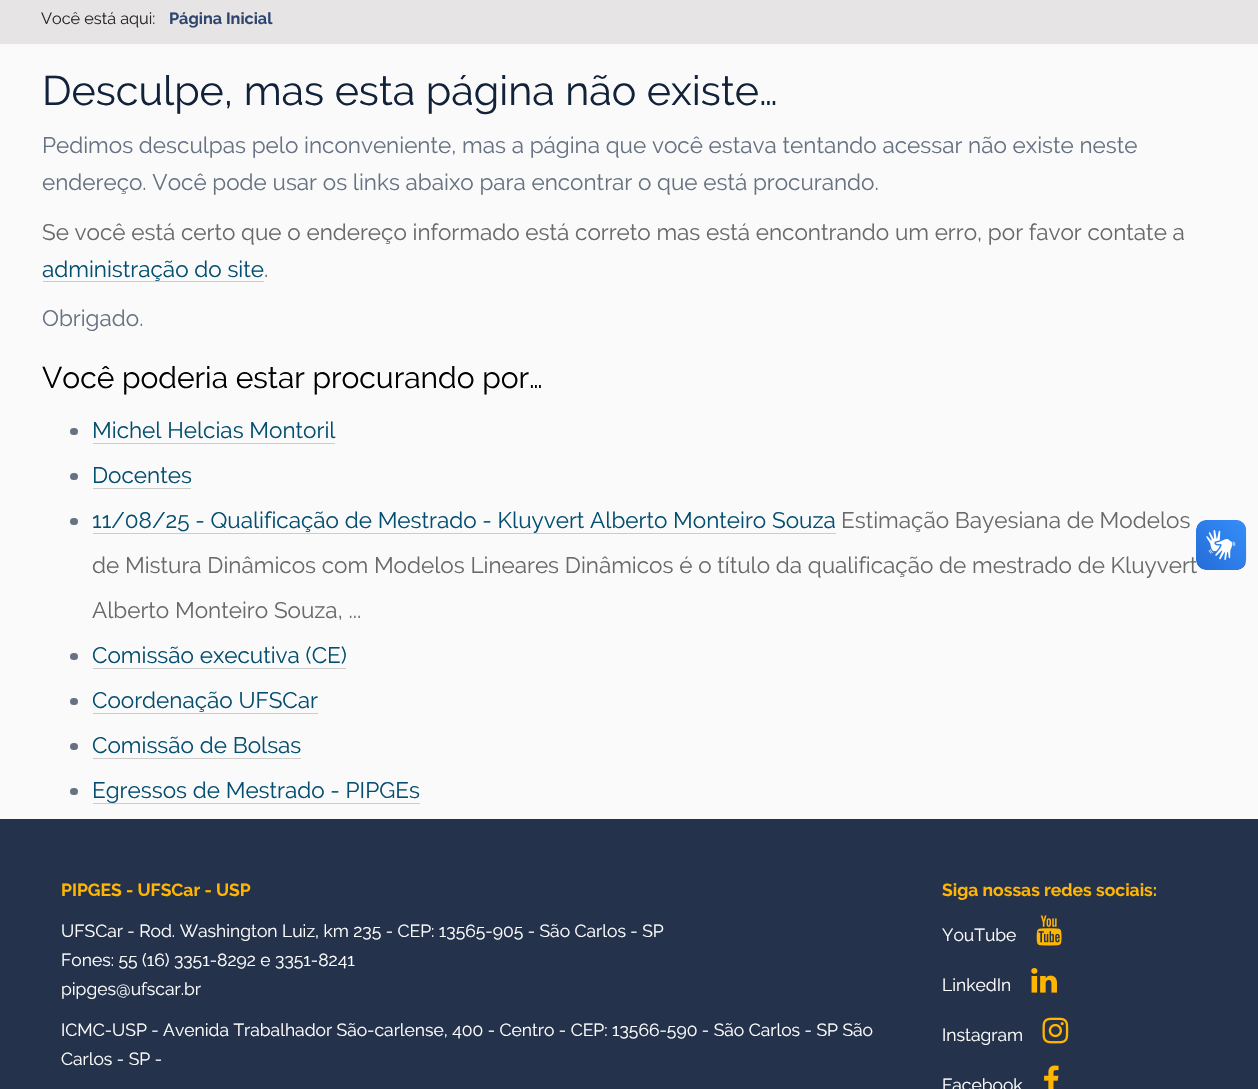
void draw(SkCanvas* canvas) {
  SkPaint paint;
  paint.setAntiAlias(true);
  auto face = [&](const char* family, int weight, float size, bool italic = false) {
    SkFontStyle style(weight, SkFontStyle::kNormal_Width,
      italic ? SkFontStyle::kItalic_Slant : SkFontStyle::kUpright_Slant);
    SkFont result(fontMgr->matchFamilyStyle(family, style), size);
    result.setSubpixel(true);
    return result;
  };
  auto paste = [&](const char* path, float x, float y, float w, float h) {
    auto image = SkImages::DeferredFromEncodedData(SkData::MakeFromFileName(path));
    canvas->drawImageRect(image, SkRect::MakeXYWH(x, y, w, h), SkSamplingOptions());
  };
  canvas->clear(0xfffafafa);
  paint.setColor(0xffe6e4e4);
  canvas->drawRect(SkRect::MakeXYWH(0, 0, 1258, 44), paint);
  paint.setColor(0xffcccccc);
  canvas->drawRect(SkRect::MakeXYWH(43, 281, 221, 1), paint);
  paint.setColor(0xff667282);
  canvas->drawRoundRect(SkRect::MakeXYWH(70, 428, 8, 7), 3.5f, 3.5f, paint);
  paint.setColor(0xffcccccc);
  canvas->drawRect(SkRect::MakeXYWH(93, 443, 242, 1), paint);
  paint.setColor(0xff667282);
  canvas->drawRoundRect(SkRect::MakeXYWH(70, 473, 8, 7), 3.5f, 3.5f, paint);
  paint.setColor(0xffcccccc);
  canvas->drawRect(SkRect::MakeXYWH(93, 488, 98, 1), paint);
  paint.setColor(0xff667282);
  canvas->drawRoundRect(SkRect::MakeXYWH(70, 518, 8, 7), 3.5f, 3.5f, paint);
  paint.setColor(0xffcccccc);
  canvas->drawRect(SkRect::MakeXYWH(93, 533, 743, 1), paint);
  paint.setColor(0xff667282);
  canvas->drawRoundRect(SkRect::MakeXYWH(70, 653, 8, 7), 3.5f, 3.5f, paint);
  paint.setColor(0xffcccccc);
  canvas->drawRect(SkRect::MakeXYWH(93, 668, 253, 1), paint);
  paint.setColor(0xff667282);
  canvas->drawRoundRect(SkRect::MakeXYWH(70, 698, 8, 7), 3.5f, 3.5f, paint);
  paint.setColor(0xffcccccc);
  canvas->drawRect(SkRect::MakeXYWH(93, 713, 225, 1), paint);
  paint.setColor(0xff667282);
  canvas->drawRoundRect(SkRect::MakeXYWH(70, 743, 8, 7), 3.5f, 3.5f, paint);
  paint.setColor(0xffcccccc);
  canvas->drawRect(SkRect::MakeXYWH(93, 758, 208, 1), paint);
  paint.setColor(0xff667282);
  canvas->drawRoundRect(SkRect::MakeXYWH(70, 788, 8, 7), 3.5f, 3.5f, paint);
  paint.setColor(0xffcccccc);
  canvas->drawRect(SkRect::MakeXYWH(93, 803, 327, 1), paint);
  paint.setColor(0xff25324b);
  canvas->drawRect(SkRect::MakeXYWH(0, 819, 1258, 270), paint);
  paste("img/3.png", 1036, 915, 26, 31);
  paste("img/4.png", 1031, 968, 26, 25);
  paste("img/5.png", 1042, 1017, 27, 27);
  paste("img/6.png", 1044, 1065, 15, 24);
  auto f0 = face("Raleway", 400, 16.25f);
  paint.setColor(0xff282828);
  canvas->drawString("Você está aqui:", 41, 24, f0, paint);
  auto f1 = face("Raleway", 700, 16.25f);
  paint.setColor(0xff2f4770);
  canvas->drawString("Página Inicial", 169, 24, f1, paint);
  auto f2 = face("Raleway", 400, 41.25f);
  paint.setColor(0xff12223b);
  canvas->drawString("Desculpe, mas esta página não existe…", 42, 105, f2, paint);
  auto f3 = face("Raleway", 400, 22.5f);
  paint.setColor(0xff667282);
  canvas->drawString("Pedimos desculpas pelo inconveniente, mas a página que você estava tentando acessar não existe neste", 42, 153, f3, paint);
  canvas->drawString("endereço. Você pode usar os links abaixo para encontrar o que está procurando.", 42, 190, f3, paint);
  paint.setColor(0xff696969);
  canvas->drawString("Se você está certo que o endereço informado está correto mas está encontrando um erro, por favor contate a", 42, 240, f3, paint);
  paint.setColor(0xff044f71);
  canvas->drawString("administração do site", 42, 277, f3, paint);
  paint.setColor(0xff696969);
  canvas->drawString(".", 264, 277, f3, paint);
  paint.setColor(0xff667282);
  canvas->drawString("Obrigado.", 42, 326, f3, paint);
  auto f4 = face("Raleway", 400, 30);
  paint.setColor(0xff000000);
  canvas->drawString("Você poderia estar procurando por…", 42, 388, f4, paint);
  paint.setColor(0xff044f71);
  {
    const struct { const char* s; float x, y; } items[] = {
      {"Michel Helcias Montoril", 92, 438},
      {"Docentes", 92, 483},
      {"11/08/25 - Qualificação de Mestrado - Kluyvert Alberto Monteiro Souza", 92, 528},
    };
    for (auto [s, x, y] : items) {
      canvas->drawString(s, x, y, f3, paint);
    }
  }
  paint.setColor(0xff696969);
  {
    const struct { const char* s; float x, y; } items[] = {
      {"Estimação Bayesiana de Modelos", 841, 528},
      {"de Mistura Dinâmicos com Modelos Lineares Dinâmicos é o título da qualificação de mestrado de Kluyvert", 92, 573},
      {"Alberto Monteiro Souza, ...", 92, 618},
    };
    for (auto [s, x, y] : items) {
      canvas->drawString(s, x, y, f3, paint);
    }
  }
  paint.setColor(0xff044f71);
  {
    const struct { const char* s; float x, y; } items[] = {
      {"Comissão executiva (CE)", 92, 663},
      {"Coordenação UFSCar", 92, 708},
      {"Comissão de Bolsas", 92, 753},
      {"Egressos de Mestrado - PIPGEs", 92, 798},
    };
    for (auto [s, x, y] : items) {
      canvas->drawString(s, x, y, f3, paint);
    }
  }
  paste("img/1.png", 1196, 520, 51, 50);
  paste("img/2.png", 1196, 520, 50, 50);
  auto f5 = face("Raleway", 700, 17.5f);
  paint.setColor(0xffffb501);
  canvas->drawString("PIPGES - UFSCar - USP", 61, 896, f5, paint);
  auto f6 = face("Raleway", 400, 17.5f);
  paint.setColor(0xfffefefe);
  {
    const struct { const char* s; float x, y; } items[] = {
      {"UFSCar - Rod. Washington Luiz, km 235 - CEP: 13565-905 - São Carlos - SP", 61, 937},
      {"Fones: 55 (16) 3351-8292 e 3351-8241", 61, 966},
      {"pipges@ufscar.br", 61, 995},
      {"ICMC-USP - Avenida Trabalhador São-carlense, 400 - Centro - CEP: 13566-590 - São Carlos - SP São", 61, 1036},
      {"Carlos - SP -", 61, 1065},
    };
    for (auto [s, x, y] : items) {
      canvas->drawString(s, x, y, f6, paint);
    }
  }
  paint.setColor(0xffffb501);
  canvas->drawString("Siga nossas redes sociais:", 942, 896, f5, paint);
  paint.setColor(0xfffefefe);
  {
    const struct { const char* s; float x, y; } items[] = {
      {"YouTube", 942, 941},
      {"LinkedIn", 942, 991},
      {"Instagram", 942, 1041},
      {"Facebook", 942, 1091},
    };
    for (auto [s, x, y] : items) {
      canvas->drawString(s, x, y, f6, paint);
    }
  }
}
